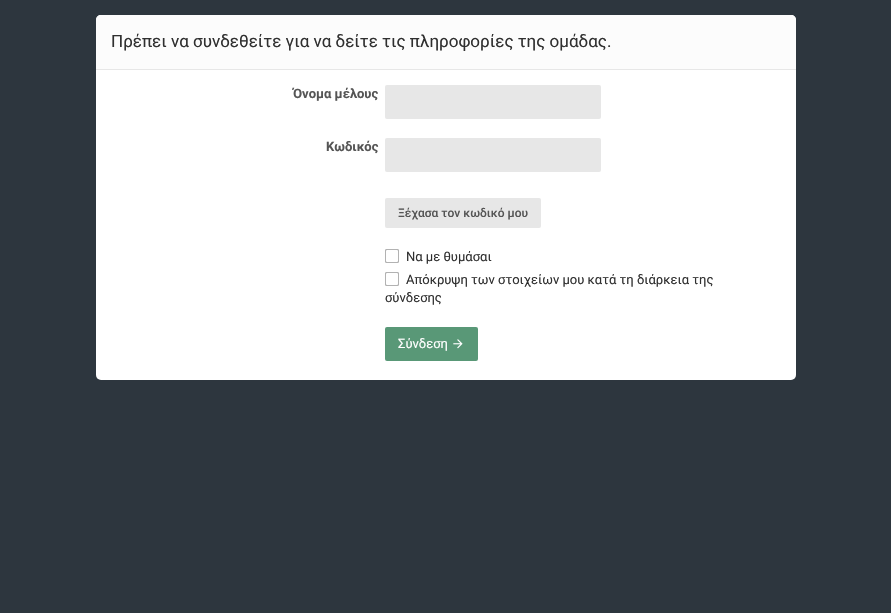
void draw(SkCanvas* canvas) {
  SkPaint paint;
  paint.setAntiAlias(true);
  auto face = [&](const char* family, int weight, float size, bool italic = false) {
    SkFontStyle style(weight, SkFontStyle::kNormal_Width,
      italic ? SkFontStyle::kItalic_Slant : SkFontStyle::kUpright_Slant);
    SkFont result(fontMgr->matchFamilyStyle(family, style), size);
    result.setSubpixel(true);
    return result;
  };
  auto paste = [&](const char* path, float x, float y, float w, float h) {
    auto image = SkImages::DeferredFromEncodedData(SkData::MakeFromFileName(path));
    canvas->drawImageRect(image, SkRect::MakeXYWH(x, y, w, h), SkSamplingOptions());
  };
  auto shape = [&](const char* data, bool evenOdd = false) {
    SkPath result = *SkParsePath::FromSVGString(data);
    if (evenOdd) result.setFillType(SkPathFillType::kEvenOdd);
    return result;
  };
  canvas->clear(0xff2d363e);
  paint.setColor(0xffffffff);
  canvas->drawRoundRect(SkRect::MakeXYWH(96, 15, 700, 365), 5, 5, paint);
  paint.setColor(0xfffcfcfc);
  canvas->drawPath(shape("M101 15H791C794 15 796 17 796 20V70H96V20C96 17 98 15 101 15Z"), paint);
  paint.setColor(0xffe7e7e7);
  canvas->drawRect(SkRect::MakeXYWH(96, 69, 700, 1), paint);
  canvas->drawRoundRect(SkRect::MakeXYWH(385, 85, 216, 34), 2, 2, paint);
  canvas->drawRoundRect(SkRect::MakeXYWH(385, 138, 216, 34), 2, 2, paint);
  canvas->drawRoundRect(SkRect::MakeXYWH(385, 198, 156, 30), 2, 2, paint);
  paint.setStroke(true);
  paint.setStrokeWidth(1);
  paint.setColor(0xffb2b2b2);
  canvas->drawRoundRect(SkRect::MakeXYWH(385.5f, 249.5f, 13, 13), 0.5f, 0.5f, paint);
  canvas->drawRoundRect(SkRect::MakeXYWH(385.5f, 249.5f, 13, 13), 1.5f, 1.5f, paint);
  canvas->drawRoundRect(SkRect::MakeXYWH(385.5f, 272.5f, 13, 13), 0.5f, 0.5f, paint);
  canvas->drawRoundRect(SkRect::MakeXYWH(385.5f, 272.5f, 13, 13), 1.5f, 1.5f, paint);
  paint.setStroke(false);
  paint.setColor(0xff599877);
  canvas->drawRoundRect(SkRect::MakeXYWH(385, 327, 93, 34), 2, 2, paint);
  paste("img/1.png", 453, 339, 10, 10);
  auto f0 = face("Roboto", 400, 17);
  paint.setColor(0xff303030);
  canvas->drawString("Πρέπει να συνδεθείτε για να δείτε τις πληροφορίες της ομάδας.", 111, 47, f0, paint);
  auto f1 = face("Roboto", 700, 13);
  paint.setColor(0xff555555);
  canvas->drawString("Όνομα μέλους", 293, 98, f1, paint);
  canvas->drawString("Κωδικός", 326, 151, f1, paint);
  auto f2 = face("Roboto", 500, 12);
  canvas->drawString("Ξέχασα τον κωδικό μου", 398, 217, f2, paint);
  auto f3 = face("Roboto", 400, 13);
  paint.setColor(0xff303030);
  {
    const struct { const char* s; float x, y; } items[] = {
      {"Να με θυμάσαι", 406, 261},
      {"Απόκρυψη των στοιχείων μου κατά τη διάρκεια της", 406, 284},
      {"σύνδεσης", 385, 302},
    };
    for (auto [s, x, y] : items) {
      canvas->drawString(s, x, y, f3, paint);
    }
  }
  paint.setColor(0xffffffff);
  canvas->drawString("Σύνδεση", 398, 348, f3, paint);
}
